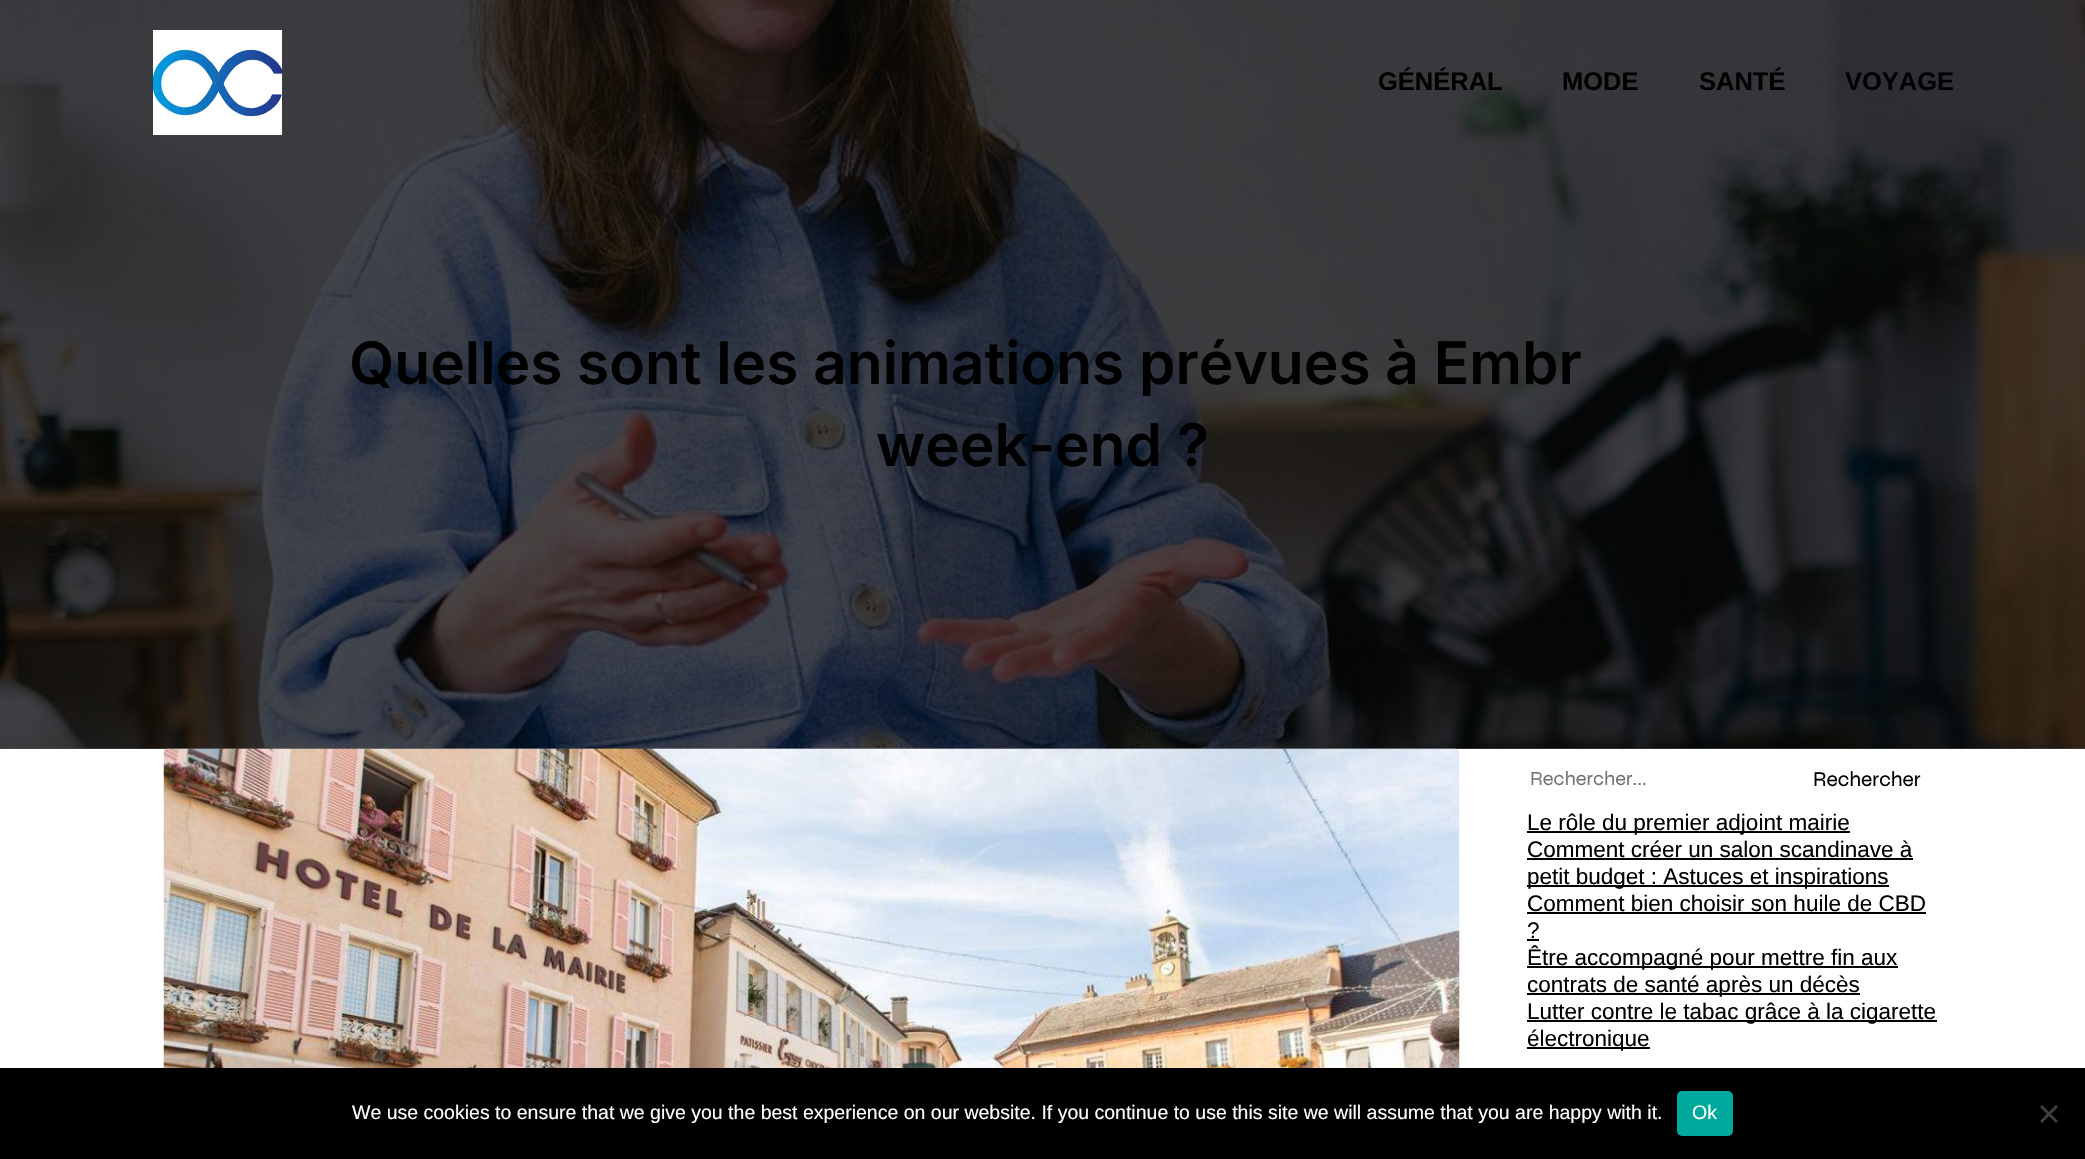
void draw(SkCanvas* canvas) {
  SkPaint paint;
  paint.setAntiAlias(true);
  auto face = [&](const char* family, int weight, float size, bool italic = false) {
    SkFontStyle style(weight, SkFontStyle::kNormal_Width,
      italic ? SkFontStyle::kItalic_Slant : SkFontStyle::kUpright_Slant);
    SkFont result(fontMgr->matchFamilyStyle(family, style), size);
    result.setSubpixel(true);
    return result;
  };
  auto paste = [&](const char* path, float x, float y, float w, float h) {
    auto image = SkImages::DeferredFromEncodedData(SkData::MakeFromFileName(path));
    canvas->drawImageRect(image, SkRect::MakeXYWH(x, y, w, h), SkSamplingOptions());
  };
  auto shape = [&](const char* data, bool evenOdd = false) {
    SkPath result = *SkParsePath::FromSVGString(data);
    if (evenOdd) result.setFillType(SkPathFillType::kEvenOdd);
    return result;
  };
  canvas->clear(0xffffffff);
  paint.setColor(0xff4d4d4d);
  canvas->drawRect(SkRect::MakeXYWH(0, 748, 2085, 1), paint);
  paste("img/2.png", 0, 0, 2085, 749);
  paste("img/1.png", 153, 30, 129, 105);
  paste("img/3.png", 163, 748, 1297, 320);
  {
    const struct { float x, y, w, h; SkColor color; } items[] = {
      {1527, 831, 323, 2, 0xff000000},
      {1527, 858, 386, 2, 0xff000000},
      {1527, 885, 362, 2, 0xff000000},
      {1527, 912, 399, 2, 0xff000000},
      {1527, 939, 12, 2, 0xff000000},
      {1527, 966, 371, 2, 0xff000000},
      {1527, 993, 333, 2, 0xff000000},
      {1527, 1020, 410, 2, 0xff000000},
      {1527, 1047, 123, 2, 0xff000000},
      {0, 1068, 2085, 91, 0xff000000},
    };
    for (auto [x, y, w, h, color] : items) {
      paint.setColor(color);
      canvas->drawRect(SkRect::MakeXYWH(x, y, w, h), paint);
    }
  }
  paint.setColor(0xff00a99d);
  canvas->drawRoundRect(SkRect::MakeXYWH(1677, 1091, 56, 45), 5, 5, paint);
  paint.setColor(0xff404040);
  canvas->drawPath(shape("M2056 1105L2058 1107L2042 1123L2040 1121Z"), paint);
  canvas->drawPath(shape("M2040 1107L2042 1105L2058 1121L2056 1123Z"), paint);
  auto f0 = face("Liberation Sans", 700, 25.5f);
  paint.setColor(0xff000000);
  {
    const struct { const char* s; float x, y; } items[] = {
      {"GÉNÉRAL", 1378, 90},
      {"MODE", 1562, 90},
      {"SANTÉ", 1699, 90},
      {"VOYAGE", 1845, 90},
    };
    for (auto [s, x, y] : items) {
      canvas->drawString(s, x, y, f0, paint);
    }
  }
  auto f1 = face("Inter", 600, 58.6f);
  canvas->drawString("Quelles sont les animations prévues à Embr", 349, 384, f1, paint);
  canvas->drawString("week-end ?", 876, 466, f1, paint);
  auto f2 = face("Syne", 400, 20);
  paint.setColor(0xff757575);
  canvas->drawString("Rechercher...", 1530, 785, f2, paint);
  auto f3 = face("Syne", 400, 21);
  paint.setColor(0xff000000);
  canvas->drawString("Rechercher", 1813, 786, f3, paint);
  auto f4 = face("Liberation Sans", 400, 22.5f);
  {
    const struct { const char* s; float x, y; } items[] = {
      {"Le rôle du premier adjoint mairie", 1527, 830},
      {"Comment créer un salon scandinave à", 1527, 857},
      {"petit budget : Astuces et inspirations", 1527, 884},
      {"Comment bien choisir son huile de CBD", 1527, 911},
      {"?", 1527, 938},
      {"Être accompagné pour mettre fin aux", 1527, 965},
      {"contrats de santé après un décès", 1527, 992},
      {"Lutter contre le tabac grâce à la cigarette", 1527, 1019},
      {"électronique", 1527, 1046},
    };
    for (auto [s, x, y] : items) {
      canvas->drawString(s, x, y, f4, paint);
    }
  }
  auto f5 = face("Liberation Sans", 400, 19.5f);
  paint.setColor(0xffffffff);
  canvas->drawString("We use cookies to ensure that we give you the best experience on our website. If you continue to use this site we will assume that you are happy with it.", 352, 1119, f5, paint);
  canvas->drawString("Ok", 1692, 1119, f5, paint);
}
